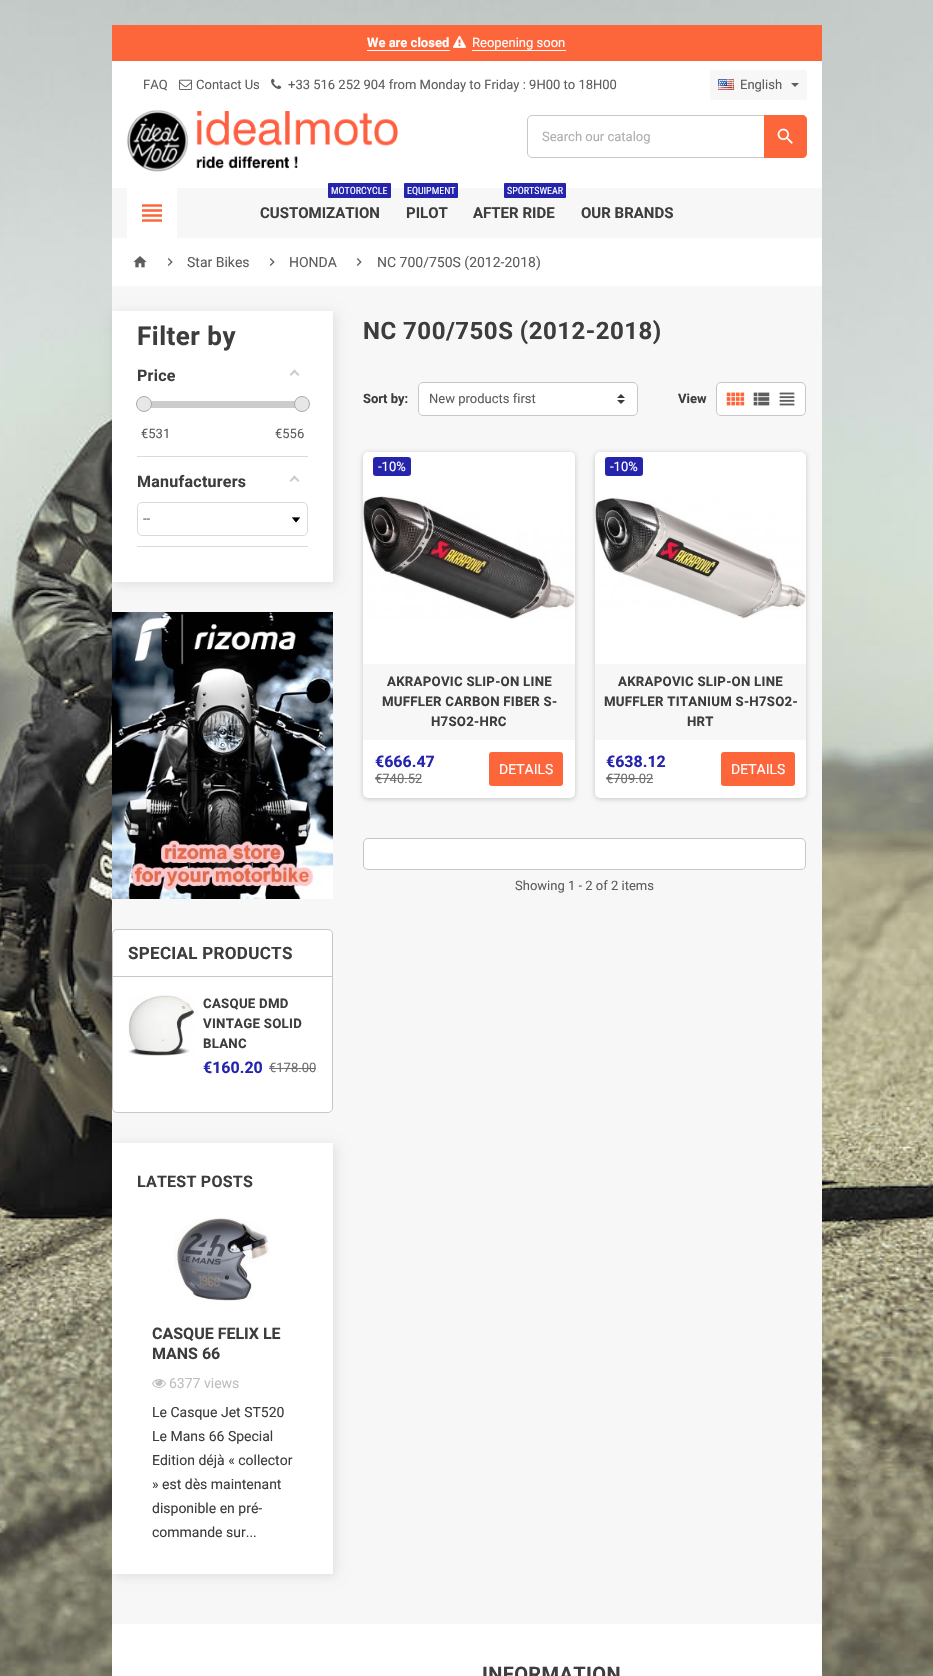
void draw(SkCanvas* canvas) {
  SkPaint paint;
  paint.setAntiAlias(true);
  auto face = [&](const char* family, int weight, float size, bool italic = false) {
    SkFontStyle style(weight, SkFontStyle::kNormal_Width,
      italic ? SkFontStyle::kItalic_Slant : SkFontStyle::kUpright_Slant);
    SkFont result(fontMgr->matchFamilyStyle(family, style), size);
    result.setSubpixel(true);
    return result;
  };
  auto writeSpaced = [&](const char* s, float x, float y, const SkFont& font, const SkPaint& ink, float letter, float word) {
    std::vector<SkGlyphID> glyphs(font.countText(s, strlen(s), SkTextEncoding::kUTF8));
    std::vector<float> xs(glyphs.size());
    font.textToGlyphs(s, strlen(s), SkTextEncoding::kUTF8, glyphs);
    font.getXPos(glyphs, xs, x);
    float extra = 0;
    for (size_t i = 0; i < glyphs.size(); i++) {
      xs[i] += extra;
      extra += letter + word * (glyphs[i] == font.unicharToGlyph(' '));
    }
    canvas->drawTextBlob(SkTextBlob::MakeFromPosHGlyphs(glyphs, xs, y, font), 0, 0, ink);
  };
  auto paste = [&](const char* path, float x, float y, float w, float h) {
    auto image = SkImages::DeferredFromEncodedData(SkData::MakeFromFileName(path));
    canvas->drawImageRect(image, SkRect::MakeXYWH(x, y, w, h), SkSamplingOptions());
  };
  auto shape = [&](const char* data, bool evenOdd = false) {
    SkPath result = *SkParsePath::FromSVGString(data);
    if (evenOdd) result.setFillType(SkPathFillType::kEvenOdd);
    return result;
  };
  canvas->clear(0xffffffff);
  paste("img/1.png", 0, 0, 933, 1676);
  {
    const struct { float x, y, w, h; SkColor color; } items[] = {
      {112, 61, 710, 127, 0xffffffff},
      {112, 25, 710, 36, 0xfffd653b},
      {367, 50, 83, 1, 0xffffffff},
    };
    for (auto [x, y, w, h, color] : items) {
      paint.setColor(color);
      canvas->drawRect(SkRect::MakeXYWH(x, y, w, h), paint);
    }
  }
  paste("img/2.png", 453, 35, 13, 13);
  canvas->drawRect(SkRect::MakeXYWH(472, 50, 94, 1), paint);
  paste("img/3.png", 179, 79, 13, 11);
  paste("img/4.png", 271, 78, 11, 11);
  paint.setColor(0xfff7f7f7);
  canvas->drawRoundRect(SkRect::MakeXYWH(710, 70, 97, 30), 3, 3, paint);
  paste("img/5.png", 718, 79, 16, 11);
  paint.setColor(0xff5d5d5d);
  canvas->drawPath(shape("M791 83H799L795 87Z"), paint);
  paste("img/6.png", 127, 110, 271, 62);
  paint.setStroke(true);
  paint.setStrokeWidth(1);
  paint.setColor(0xffc7c7c7);
  canvas->drawRoundRect(SkRect::MakeXYWH(527.5f, 115.5f, 279, 42), 4.5f, 4.5f, paint);
  paint.setStroke(false);
  paint.setColor(0xfffd653b);
  canvas->drawPath(shape("M764 115H802C805 115 807 117 807 120V153C807 156 805 158 802 158H764Z"), paint);
  paste("img/7.png", 777, 128, 16, 16);
  paint.setColor(0xfff7f7f7);
  canvas->drawRect(SkRect::MakeXYWH(112, 188, 710, 50), paint);
  paint.setColor(0xffffffff);
  canvas->drawRect(SkRect::MakeXYWH(127, 188, 50, 50), paint);
  paste("img/8.png", 142, 204, 20, 18);
  paint.setColor(0xff2424ad);
  canvas->drawRoundRect(SkRect::MakeXYWH(328, 183, 63, 15), 1, 1, paint);
  canvas->drawRoundRect(SkRect::MakeXYWH(404, 183, 54, 15), 1, 1, paint);
  canvas->drawRoundRect(SkRect::MakeXYWH(504, 183, 62, 15), 1, 1, paint);
  paint.setColor(0xffffffff);
  canvas->drawRect(SkRect::MakeXYWH(112, 238, 710, 48), paint);
  paste("img/9.png", 133, 256, 14, 12);
  paste("img/10.png", 167, 258, 6, 8);
  paste("img/10.png", 269, 258, 6, 8);
  paste("img/10.png", 356, 258, 6, 8);
  paint.setColor(0xfff7f7f7);
  canvas->drawRect(SkRect::MakeXYWH(112, 286, 710, 1338), paint);
  paint.setColor(0x1a000000);
  paint.setMaskFilter(SkMaskFilter::MakeBlur(kNormal_SkBlurStyle, 5.5f));
  canvas->drawRect(SkRect::MakeXYWH(114, 313, 221, 271), paint);
  paint.setMaskFilter(nullptr);
  paint.setColor(0xffffffff);
  canvas->drawRect(SkRect::MakeXYWH(112, 311, 221, 271), paint);
  paint.setColor(0xffdadada);
  canvas->drawRect(SkRect::MakeXYWH(137, 456, 171, 1), paint);
  paint.setColor(0xffcccccc);
  canvas->drawPath(shape("M294.5 369.5L299.5 374.5L298 376L293 371Z"), paint);
  canvas->drawPath(shape("M294.5 369.5L296 371L291 376L289.5 374.5Z"), paint);
  canvas->drawRect(SkRect::MakeXYWH(144, 401, 158, 7), paint);
  paint.setColor(0xffe7e7e7);
  canvas->drawCircle(144, 404, 7.5f, paint);
  paint.setStroke(true);
  paint.setColor(0xffaaaaaa);
  canvas->drawCircle(144, 404, 7.5f, paint);
  paint.setStroke(false);
  paint.setColor(0xffe7e7e7);
  canvas->drawCircle(302, 404, 7.5f, paint);
  paint.setStroke(true);
  paint.setColor(0xffaaaaaa);
  canvas->drawCircle(302, 404, 7.5f, paint);
  paint.setStroke(false);
  paint.setColor(0xffdadada);
  canvas->drawRect(SkRect::MakeXYWH(137, 546, 171, 1), paint);
  paint.setColor(0xffcccccc);
  canvas->drawPath(shape("M294.5 475.5L299.5 480.5L298 482L293 477Z"), paint);
  canvas->drawPath(shape("M294.5 475.5L296 477L291 482L289.5 480.5Z"), paint);
  paste("img/11.png", 292, 517, 8, 6);
  paint.setStroke(true);
  paint.setColor(0xffdadada);
  canvas->drawRoundRect(SkRect::MakeXYWH(137.5f, 502.5f, 170, 33), 4.5f, 4.5f, paint);
  paste("img/12.png", 112, 612, 221, 287);
  paint.setStroke(false);
  paint.setColor(0xffffffff);
  canvas->drawRoundRect(SkRect::MakeXYWH(112.5f, 929.5f, 220, 183), 4.5f, 4.5f, paint);
  paint.setStroke(true);
  paint.setColor(0xffc7c7c7);
  canvas->drawRoundRect(SkRect::MakeXYWH(112.5f, 929.5f, 220, 183), 4.5f, 4.5f, paint);
  paint.setStroke(false);
  canvas->drawRect(SkRect::MakeXYWH(113, 976, 219, 1), paint);
  paste("img/13.png", 128, 995, 66, 61);
  paint.setColor(0xff6f6f6f);
  canvas->drawRect(SkRect::MakeXYWH(269, 1068, 47, 1), paint);
  paint.setColor(0x1a000000);
  paint.setMaskFilter(SkMaskFilter::MakeBlur(kNormal_SkBlurStyle, 5.5f));
  canvas->drawRect(SkRect::MakeXYWH(114, 1145, 221, 431), paint);
  paint.setMaskFilter(nullptr);
  paint.setColor(0xffffffff);
  canvas->drawRect(SkRect::MakeXYWH(112, 1143, 221, 431), paint);
  paste("img/14.png", 174, 1218, 96, 83);
  paste("img/15.png", 152, 1379, 14, 9);
  canvas->drawRoundRect(SkRect::MakeXYWH(418, 382, 220, 34), 5, 5, paint);
  paste("img/16.png", 617, 394, 8, 10);
  paint.setStroke(true);
  paint.setColor(0xffc7c7c7);
  canvas->drawRoundRect(SkRect::MakeXYWH(418.5f, 382.5f, 219, 33), 4.5f, 4.5f, paint);
  paint.setStroke(false);
  paint.setColor(0xffffffff);
  canvas->drawRoundRect(SkRect::MakeXYWH(716.5f, 382.5f, 89, 33), 4.5f, 4.5f, paint);
  paint.setStroke(true);
  paint.setColor(0xffc7c7c7);
  canvas->drawRoundRect(SkRect::MakeXYWH(716.5f, 382.5f, 89, 33), 4.5f, 4.5f, paint);
  paste("img/17.png", 726, 392, 19, 14);
  paste("img/18.png", 753, 392, 17, 14);
  paste("img/19.png", 779, 392, 16, 14);
  paint.setStroke(false);
  paint.setColor(0x33000000);
  paint.setMaskFilter(SkMaskFilter::MakeBlur(kNormal_SkBlurStyle, 2.5f));
  canvas->drawRoundRect(SkRect::MakeXYWH(363, 453, 212, 346), 5, 5, paint);
  paint.setMaskFilter(nullptr);
  paint.setColor(0xffffffff);
  canvas->drawRoundRect(SkRect::MakeXYWH(363, 452, 212, 346), 5, 5, paint);
  paint.setColor(0xff2424ad);
  canvas->drawRoundRect(SkRect::MakeXYWH(373, 457, 38, 19), 3, 3, paint);
  paste("img/20.png", 363, 496, 212, 123);
  paint.setColor(0xfff7f7f7);
  canvas->drawRect(SkRect::MakeXYWH(363, 664, 212, 76), paint);
  paint.setColor(0xff6f6f6f);
  canvas->drawRect(SkRect::MakeXYWH(375, 778, 46, 1), paint);
  paint.setColor(0xfffd653b);
  canvas->drawRoundRect(SkRect::MakeXYWH(489, 752, 74, 34), 3, 3, paint);
  paint.setColor(0x33000000);
  paint.setMaskFilter(SkMaskFilter::MakeBlur(kNormal_SkBlurStyle, 2.5f));
  canvas->drawRoundRect(SkRect::MakeXYWH(595, 453, 211, 346), 5, 5, paint);
  paint.setMaskFilter(nullptr);
  paint.setColor(0xffffffff);
  canvas->drawRoundRect(SkRect::MakeXYWH(595, 452, 211, 346), 5, 5, paint);
  paint.setColor(0xff2424ad);
  canvas->drawRoundRect(SkRect::MakeXYWH(605, 457, 38, 19), 3, 3, paint);
  paste("img/21.png", 595, 497, 211, 123);
  paint.setColor(0xfff7f7f7);
  canvas->drawRect(SkRect::MakeXYWH(595, 664, 211, 76), paint);
  paint.setColor(0xff6f6f6f);
  canvas->drawRect(SkRect::MakeXYWH(606, 778, 47, 1), paint);
  paint.setColor(0xfffd653b);
  canvas->drawRoundRect(SkRect::MakeXYWH(721, 752, 74, 34), 3, 3, paint);
  paint.setColor(0xffffffff);
  canvas->drawRoundRect(SkRect::MakeXYWH(363.5f, 838.5f, 442, 31), 4.5f, 4.5f, paint);
  paint.setStroke(true);
  paint.setColor(0xffc7c7c7);
  canvas->drawRoundRect(SkRect::MakeXYWH(363.5f, 838.5f, 442, 31), 4.5f, 4.5f, paint);
  paint.setStroke(false);
  paint.setColor(0xffffffff);
  canvas->drawRect(SkRect::MakeXYWH(112, 1624, 710, 52), paint);
  auto f0 = face("Roboto", 700, 13);
  canvas->drawString("We are closed", 367, 47, f0, paint);
  auto f1 = face("Roboto", 400, 13);
  canvas->drawString("Reopening soon", 472, 47, f1, paint);
  paint.setColor(0xff5d5d5d);
  {
    const struct { const char* s; float x, y; } items[] = {
      {"FAQ", 143, 89},
      {"Contact Us", 196, 89},
      {"+33 516 252 904 from Monday to Friday : 9H00 to 18H00", 288, 89},
      {"English", 740, 89},
    };
    for (auto [s, x, y] : items) {
      canvas->drawString(s, x, y, f1, paint);
    }
  }
  paint.setColor(0xffaeaeae);
  canvas->drawString("Search our catalog", 542, 141, f1, paint);
  auto f2 = face("Roboto Condensed", 400, 10);
  paint.setColor(0xffffffff);
  canvas->drawString("MOTORCYCLE", 331, 194, f2, paint);
  auto f3 = face("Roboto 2", 700, 15);
  paint.setColor(0xff3d3d3d);
  canvas->drawString("CUSTOMIZATION", 260, 218, f3, paint);
  paint.setColor(0xffffffff);
  canvas->drawString("EQUIPMENT", 407, 194, f2, paint);
  paint.setColor(0xff3d3d3d);
  canvas->drawString("PILOT", 406, 218, f3, paint);
  paint.setColor(0xffffffff);
  canvas->drawString("SPORTSWEAR", 507, 194, f2, paint);
  paint.setColor(0xff3d3d3d);
  canvas->drawString("AFTER RIDE", 473, 218, f3, paint);
  canvas->drawString("OUR BRANDS", 581, 218, f3, paint);
  auto f4 = face("Roboto", 400, 14);
  paint.setColor(0xff5d5d5d);
  {
    const struct { const char* s; float x, y; } items[] = {
      {"Star Bikes", 187, 267},
      {"HONDA", 289, 267},
      {"NC 700/750S (2012-2018)", 377, 267},
    };
    for (auto [s, x, y] : items) {
      canvas->drawString(s, x, y, f4, paint);
    }
  }
  auto f5 = face("Roboto 2", 700, 26);
  paint.setColor(0xff3d3d3d);
  writeSpaced("Filter by", 137, 345, f5, paint, 0.5f, 0);
  auto f6 = face("Roboto 2", 700, 16);
  writeSpaced("Price", 137, 381, f6, paint, 0.25f, 0);
  paint.setColor(0xff5d5d5d);
  canvas->drawString("€531", 141, 438, f1, paint);
  canvas->drawString("€556", 275, 438, f1, paint);
  paint.setColor(0xff3d3d3d);
  writeSpaced("Manufacturers", 137, 487, f6, paint, 0.25f, 0);
  paint.setColor(0xff5d5d5d);
  canvas->drawString("--", 143, 523, f1, paint);
  auto f7 = face("Roboto 2", 700, 17);
  paint.setColor(0xff3d3d3d);
  writeSpaced("SPECIAL PRODUCTS", 128, 959, f7, paint, 0.3f, 0);
  auto f8 = face("Roboto", 700, 13.25f);
  {
    const struct { const char* s; float x, y; } items[] = {
      {"CASQUE DMD", 203, 1008},
      {"VINTAGE SOLID", 203, 1028},
      {"BLANC", 203, 1048},
    };
    for (auto [s, x, y] : items) {
      writeSpaced(s, x, y, f8, paint, 0.25f, 0);
    }
  }
  auto f9 = face("Roboto", 700, 16);
  paint.setColor(0xff2424ad);
  canvas->drawString("€160.20", 203, 1073, f9, paint);
  paint.setColor(0xff6f6f6f);
  canvas->drawString("€178.00", 269, 1072, f1, paint);
  paint.setColor(0xff3d3d3d);
  writeSpaced("LATEST POSTS", 137, 1187, f6, paint, 0.25f, 0);
  canvas->drawString("CASQUE FELIX LE", 152, 1339, f9, paint);
  canvas->drawString("MANS 66", 152, 1359, f9, paint);
  paint.setColor(0xffbfbfbf);
  canvas->drawString("6377 views", 169, 1388, f4, paint);
  paint.setColor(0xff3d3d3d);
  {
    const struct { const char* s; float x, y; } items[] = {
      {"Le Casque Jet ST520", 152, 1417},
      {"Le Mans 66 Special", 152, 1441},
      {"Edition déjà « collector", 152, 1465},
      {"» est dès maintenant", 152, 1489},
      {"disponible en pré-", 152, 1513},
      {"commande sur...", 152, 1537},
    };
    for (auto [s, x, y] : items) {
      canvas->drawString(s, x, y, f4, paint);
    }
  }
  auto f10 = face("Roboto 2", 700, 24);
  writeSpaced("NC 700/750S (2012-2018)", 363, 339, f10, paint, 0.5f, 0);
  canvas->drawString("Sort by:", 363, 403, f0, paint);
  paint.setColor(0xff5d5d5d);
  canvas->drawString("New products first", 429, 403, f1, paint);
  paint.setColor(0xff3d3d3d);
  canvas->drawString("View", 678, 403, f0, paint);
  paint.setColor(0xffffffff);
  canvas->drawString("-10%", 378, 471, f1, paint);
  paint.setColor(0xff3d3d3d);
  {
    const struct { const char* s; float x, y; } items[] = {
      {"AKRAPOVIC SLIP-ON LINE", 387, 686},
      {"MUFFLER CARBON FIBER S-", 382, 706},
      {"H7SO2-HRC", 431, 726},
    };
    for (auto [s, x, y] : items) {
      writeSpaced(s, x, y, f8, paint, 0.25f, 0);
    }
  }
  paint.setColor(0xff2424ad);
  canvas->drawString("€666.47", 375, 767, f9, paint);
  paint.setColor(0xff6f6f6f);
  canvas->drawString("€740.52", 375, 783, f1, paint);
  paint.setColor(0xffffffff);
  canvas->drawString("DETAILS", 499, 774, f4, paint);
  canvas->drawString("-10%", 610, 471, f1, paint);
  paint.setColor(0xff3d3d3d);
  {
    const struct { const char* s; float x, y; } items[] = {
      {"AKRAPOVIC SLIP-ON LINE", 618, 686},
      {"MUFFLER TITANIUM S-H7SO2-", 604, 706},
      {"HRT", 687, 726},
    };
    for (auto [s, x, y] : items) {
      writeSpaced(s, x, y, f8, paint, 0.25f, 0);
    }
  }
  paint.setColor(0xff2424ad);
  canvas->drawString("€638.12", 606, 767, f9, paint);
  paint.setColor(0xff6f6f6f);
  canvas->drawString("€709.02", 606, 783, f1, paint);
  paint.setColor(0xffffffff);
  canvas->drawString("DETAILS", 731, 774, f4, paint);
  paint.setColor(0xff5d5d5d);
  canvas->drawString("Showing 1 - 2 of 2 items", 515, 890, f1, paint);
  auto f11 = face("Roboto 2", 700, 20);
  paint.setColor(0xff3d3d3d);
  writeSpaced("INFORMATION", 482, 1681, f11, paint, 0.4f, 0);
}
